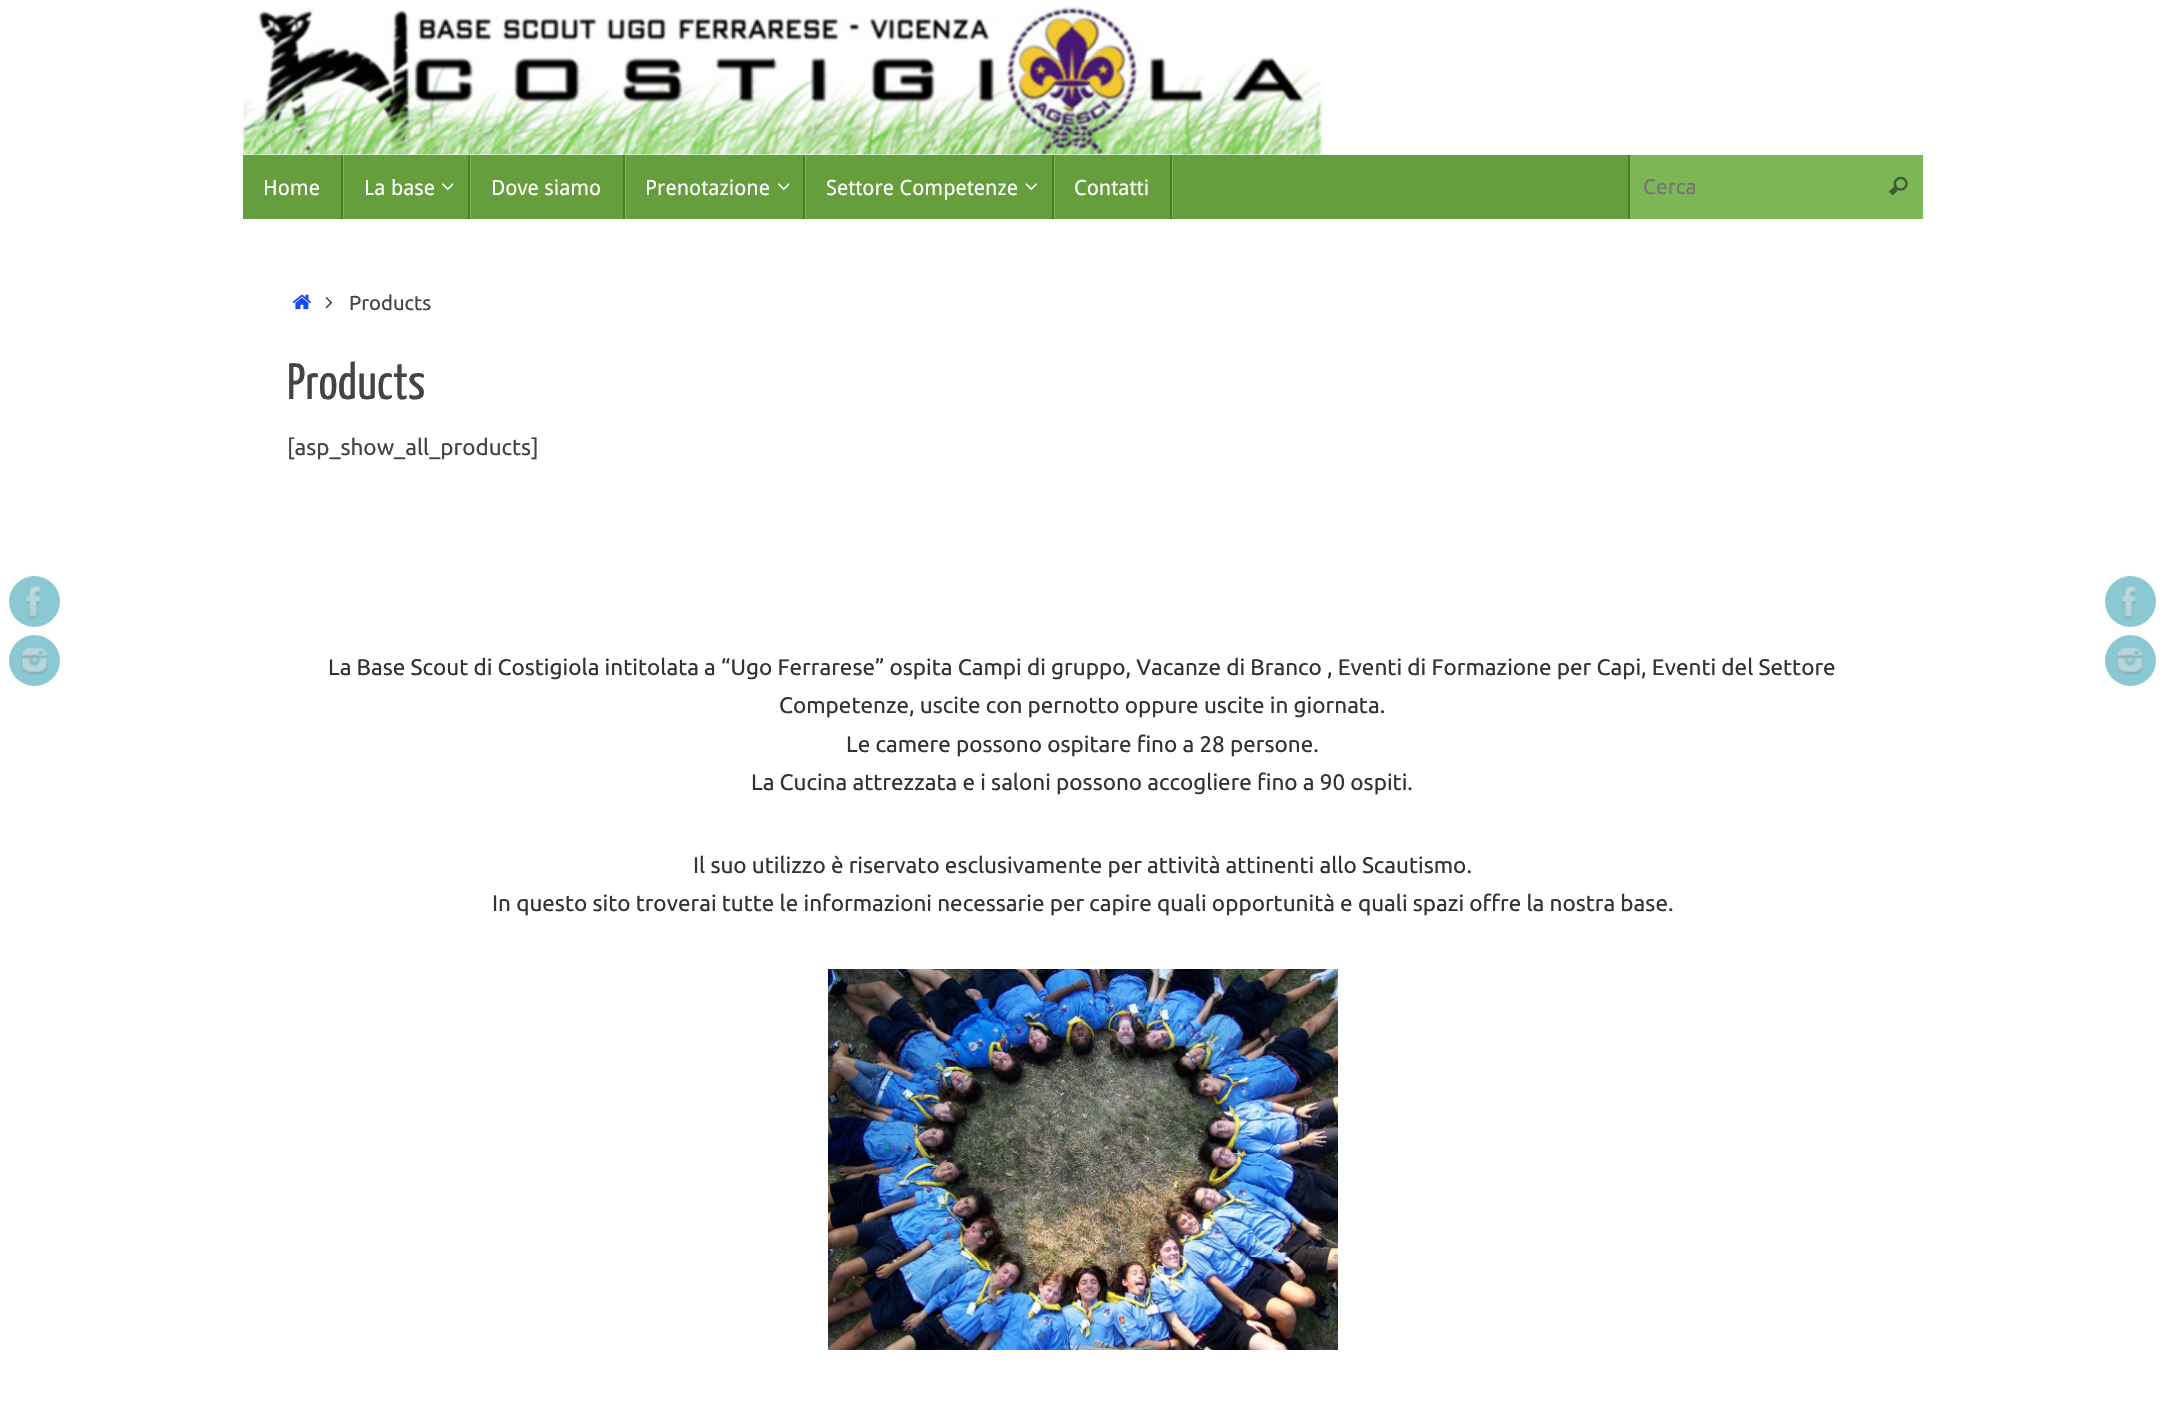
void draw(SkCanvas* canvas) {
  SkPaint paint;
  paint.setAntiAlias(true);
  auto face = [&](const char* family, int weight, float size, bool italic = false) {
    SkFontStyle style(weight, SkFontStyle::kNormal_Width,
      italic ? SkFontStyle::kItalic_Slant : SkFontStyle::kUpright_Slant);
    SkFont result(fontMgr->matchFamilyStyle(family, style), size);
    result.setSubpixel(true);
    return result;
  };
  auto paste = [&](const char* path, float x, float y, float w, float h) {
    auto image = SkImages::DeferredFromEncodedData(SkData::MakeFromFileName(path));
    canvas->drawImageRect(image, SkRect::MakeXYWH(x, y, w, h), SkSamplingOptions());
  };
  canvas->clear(0xffffffff);
  paste("img/1.png", 243, 7, 1080, 148);
  {
    const struct { float x, y, w, h; SkColor color; } items[] = {
      {243, 155, 1385, 64, 0xff649e3d},
      {343, 155, 1, 64, 0xff7cb655},
      {341, 155, 2, 64, 0xff46801f},
      {470, 155, 1, 64, 0xff7cb655},
      {468, 155, 2, 64, 0xff46801f},
    };
    for (auto [x, y, w, h, color] : items) {
      paint.setColor(color);
      canvas->drawRect(SkRect::MakeXYWH(x, y, w, h), paint);
    }
  }
  paste("img/2.png", 442, 183, 12, 8);
  {
    const struct { float x, y, w, h; SkColor color; } items[] = {
      {625, 155, 1, 64, 0xff7cb655},
      {623, 155, 2, 64, 0xff46801f},
      {805, 155, 1, 64, 0xff7cb655},
      {803, 155, 2, 64, 0xff46801f},
    };
    for (auto [x, y, w, h, color] : items) {
      paint.setColor(color);
      canvas->drawRect(SkRect::MakeXYWH(x, y, w, h), paint);
    }
  }
  paste("img/2.png", 778, 183, 12, 8);
  paint.setColor(0xff7cb655);
  canvas->drawRect(SkRect::MakeXYWH(1054, 155, 1, 64), paint);
  paint.setColor(0xff46801f);
  canvas->drawRect(SkRect::MakeXYWH(1052, 155, 2, 64), paint);
  paste("img/3.png", 1025, 183, 13, 8);
  {
    const struct { float x, y, w, h; SkColor color; } items[] = {
      {1172, 155, 1, 64, 0xff7cb655},
      {1170, 155, 2, 64, 0xff46801f},
      {1630, 155, 293, 64, 0xff7cb655},
      {1628, 155, 2, 64, 0xff46801f},
    };
    for (auto [x, y, w, h, color] : items) {
      paint.setColor(color);
      canvas->drawRect(SkRect::MakeXYWH(x, y, w, h), paint);
    }
  }
  paste("img/4.png", 1889, 176, 19, 20);
  paint.setColor(0xff8bc9d2);
  canvas->drawCircle(34.5f, 601.5f, 25.5f, paint);
  paste("img/5.png", 25, 586, 16, 33);
  canvas->drawCircle(34.5f, 660.5f, 25.5f, paint);
  paste("img/6.png", 21, 647, 27, 28);
  paste("img/7.png", 292, 294, 19, 16);
  paste("img/8.png", 325, 297, 8, 12);
  paste("img/9.png", 828, 969, 510, 381);
  canvas->drawCircle(2130.5f, 601.5f, 25.5f, paint);
  paste("img/10.png", 2120, 586, 17, 33);
  canvas->drawCircle(2130.5f, 660.5f, 25.5f, paint);
  paste("img/11.png", 2117, 647, 27, 28);
  auto f0 = face("Droid Sans", 400, 21);
  paint.setColor(0xffffffff);
  {
    const struct { const char* s; float x, y; } items[] = {
      {"Home", 263, 195},
      {"La base", 364, 195},
      {"Dove siamo", 491, 195},
      {"Prenotazione", 645, 195},
      {"Settore Competenze", 826, 195},
      {"Contatti", 1074, 195},
    };
    for (auto [s, x, y] : items) {
      canvas->drawString(s, x, y, f0, paint);
    }
  }
  auto f1 = face("Ubuntu", 400, 21);
  paint.setColor(0xff757575);
  canvas->drawString("Cerca", 1643, 194, f1, paint);
  auto f2 = face("Ubuntu", 400, 20.25f);
  paint.setColor(0xff444444);
  canvas->drawString("Products", 349, 310, f2, paint);
  auto f3 = face("Yanone Kaffeesatz", 400, 51);
  canvas->drawString("Products", 287, 399, f3, paint);
  auto f4 = face("Ubuntu", 400, 22.5f);
  canvas->drawString("[asp_show_all_products]", 287, 455, f4, paint);
  paint.setColor(0xff333333);
  {
    const struct { const char* s; float x, y; } items[] = {
      {"La Base Scout di Costigiola intitolata a “Ugo Ferrarese” ospita Campi di gruppo, Vacanze di Branco , Eventi di Formazione per Capi, Eventi del Settore", 328, 675},
      {"Competenze, uscite con pernotto oppure uscite in giornata.", 779, 713},
      {"Le camere possono ospitare fino a 28 persone.", 846, 752},
      {"La Cucina attrezzata e i saloni possono accogliere fino a 90 ospiti.", 751, 790},
      {"Il suo utilizzo è riservato esclusivamente per attività attinenti allo Scautismo.", 693, 873},
      {"In questo sito troverai tutte le informazioni necessarie per capire quali opportunità e quali spazi offre la nostra base.", 492, 911},
    };
    for (auto [s, x, y] : items) {
      canvas->drawString(s, x, y, f4, paint);
    }
  }
}
